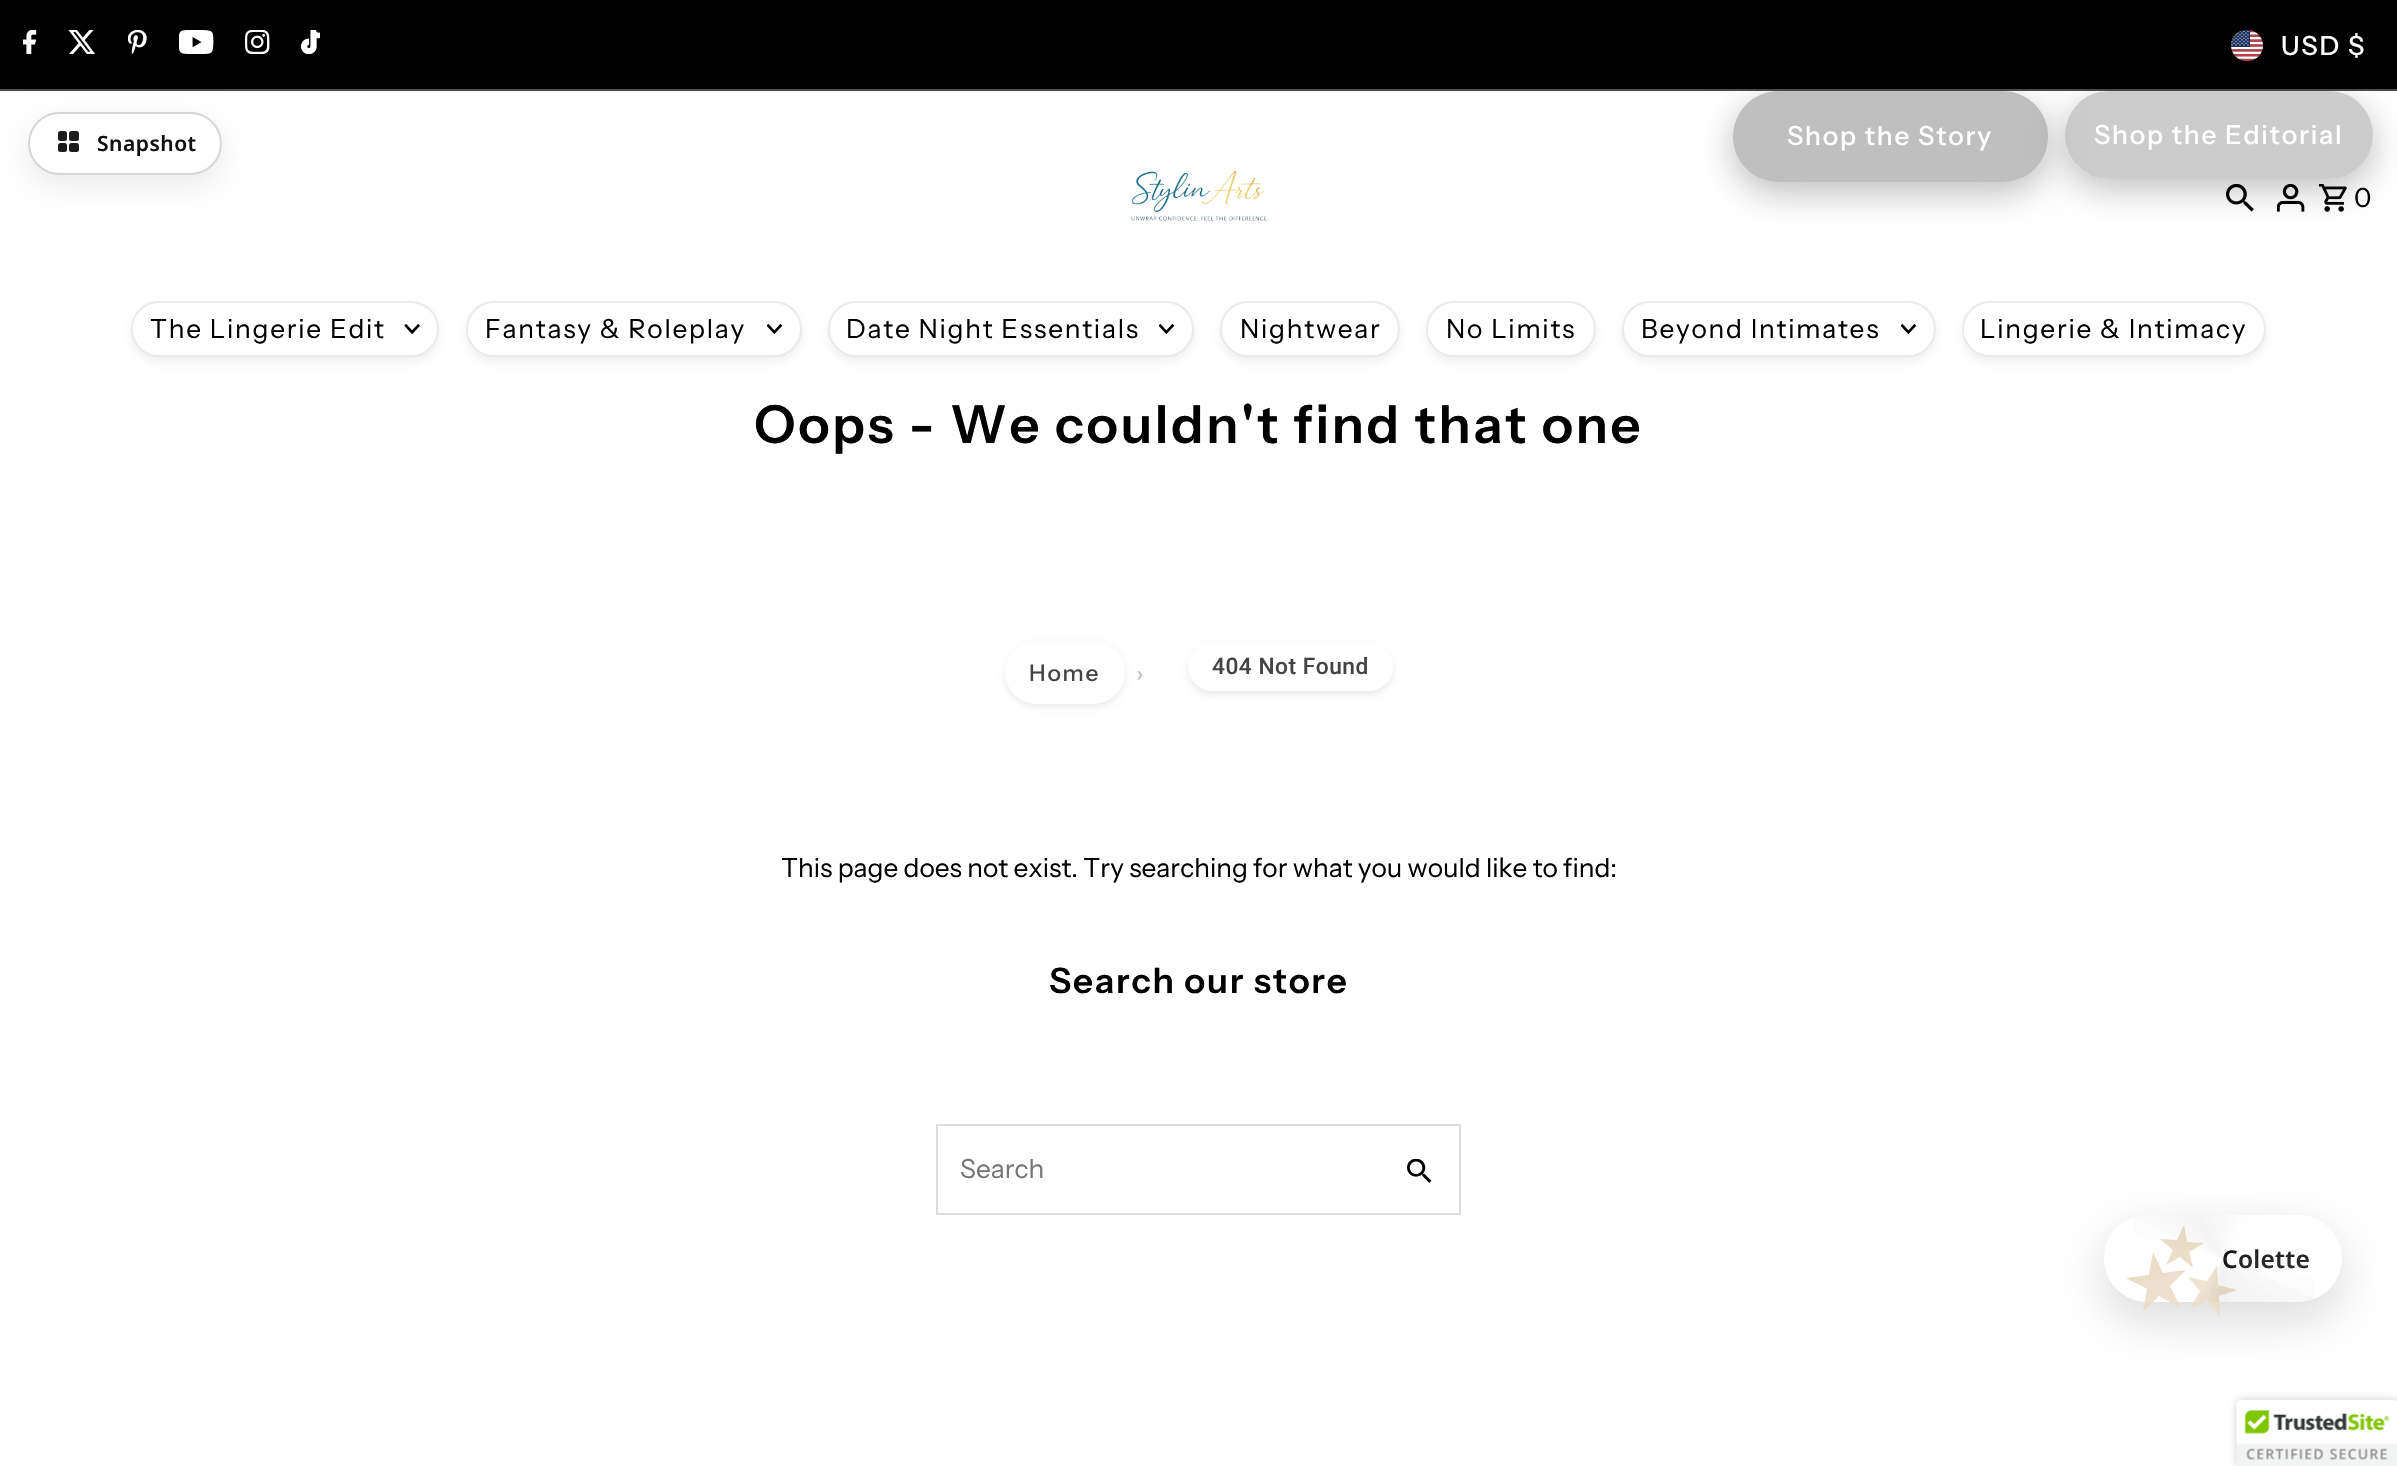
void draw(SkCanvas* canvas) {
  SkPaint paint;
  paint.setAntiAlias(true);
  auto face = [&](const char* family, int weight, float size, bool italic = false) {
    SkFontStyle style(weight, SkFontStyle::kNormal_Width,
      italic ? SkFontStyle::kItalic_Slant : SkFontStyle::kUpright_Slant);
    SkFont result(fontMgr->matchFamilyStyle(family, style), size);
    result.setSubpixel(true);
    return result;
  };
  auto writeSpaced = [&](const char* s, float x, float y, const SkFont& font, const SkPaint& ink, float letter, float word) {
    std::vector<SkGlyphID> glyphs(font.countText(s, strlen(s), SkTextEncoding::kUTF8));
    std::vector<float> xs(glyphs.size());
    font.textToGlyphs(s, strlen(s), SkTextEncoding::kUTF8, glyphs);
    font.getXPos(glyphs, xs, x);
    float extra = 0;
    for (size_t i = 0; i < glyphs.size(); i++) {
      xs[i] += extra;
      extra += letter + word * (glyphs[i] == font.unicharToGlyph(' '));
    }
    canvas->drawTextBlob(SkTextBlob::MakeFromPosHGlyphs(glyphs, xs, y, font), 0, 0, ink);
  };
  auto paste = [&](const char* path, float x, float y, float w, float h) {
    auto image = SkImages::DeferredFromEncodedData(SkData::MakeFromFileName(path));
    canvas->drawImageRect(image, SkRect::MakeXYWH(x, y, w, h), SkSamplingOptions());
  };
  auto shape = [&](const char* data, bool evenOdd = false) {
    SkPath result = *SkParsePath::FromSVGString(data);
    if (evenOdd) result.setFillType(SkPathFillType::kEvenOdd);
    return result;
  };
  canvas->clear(0xffffffff);
  paint.setColor(0xff4d4d4d);
  canvas->drawRect(SkRect::MakeXYWH(0, 89, 2397, 2), paint);
  paint.setColor(0xff000000);
  canvas->drawRect(SkRect::MakeXYWH(0, 0, 2397, 89), paint);
  paste("img/1.png", 23, 30, 14, 24);
  paste("img/2.png", 68, 30, 27, 24);
  paste("img/3.png", 128, 30, 19, 24);
  paste("img/4.png", 179, 30, 35, 24);
  paste("img/5.png", 245, 30, 25, 24);
  paste("img/6.png", 301, 30, 19, 24);
  paste("img/7.png", 2231, 30, 32, 31);
  canvas->save();
  canvas->clipPath(shape("M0 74H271V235H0ZM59.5 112H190.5C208 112 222 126 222 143.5C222 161 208 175 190.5 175H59.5C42 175 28 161 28 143.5C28 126 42 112 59.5 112Z", true), true);
  paint.setColor(0x14000000);
  paint.setMaskFilter(SkMaskFilter::MakeBlur(kNormal_SkBlurStyle, 16));
  canvas->drawRoundRect(SkRect::MakeXYWH(28, 123, 194, 63), 31.5f, 31.5f, paint);
  paint.setMaskFilter(nullptr);
  canvas->restore();
  paint.setColor(0xebffffff);
  canvas->drawRoundRect(SkRect::MakeXYWH(28, 112, 194, 63), 31.5f, 31.5f, paint);
  paint.setStroke(true);
  paint.setStrokeWidth(2);
  paint.setColor(0x29000000);
  canvas->drawRoundRect(SkRect::MakeXYWH(29, 113, 192, 61), 30.5f, 30.5f, paint);
  paint.setStroke(false);
  paint.setColor(0xff1d1d1d);
  canvas->drawRoundRect(SkRect::MakeXYWH(58, 131, 9, 10), 2.5f, 2.5f, paint);
  canvas->drawRoundRect(SkRect::MakeXYWH(69, 131, 10, 10), 2.5f, 2.5f, paint);
  canvas->drawRoundRect(SkRect::MakeXYWH(58, 143, 9, 9), 2.5f, 2.5f, paint);
  canvas->drawRoundRect(SkRect::MakeXYWH(69, 143, 10, 9), 2.5f, 2.5f, paint);
  paste("img/8.png", 1131, 170, 138, 51);
  paste("img/9.png", 2226, 184, 28, 28);
  paste("img/10.png", 2277, 184, 28, 28);
  paste("img/11.png", 2319, 184, 28, 28);
  paint.setColor(0x0f000000);
  paint.setMaskFilter(SkMaskFilter::MakeBlur(kNormal_SkBlurStyle, 5));
  canvas->drawRoundRect(SkRect::MakeXYWH(131, 306, 308, 56), 28, 28, paint);
  paint.setMaskFilter(nullptr);
  paint.setColor(0xffffffff);
  canvas->drawRoundRect(SkRect::MakeXYWH(131, 301, 308, 56), 28, 28, paint);
  paint.setStroke(true);
  paint.setColor(0x14000000);
  canvas->drawRoundRect(SkRect::MakeXYWH(132, 302, 306, 54), 27, 27, paint);
  paste("img/12.png", 404, 324, 16, 10);
  paint.setStroke(false);
  paint.setColor(0x0f000000);
  paint.setMaskFilter(SkMaskFilter::MakeBlur(kNormal_SkBlurStyle, 5));
  canvas->drawRoundRect(SkRect::MakeXYWH(466, 306, 336, 56), 28, 28, paint);
  paint.setMaskFilter(nullptr);
  paint.setColor(0xffffffff);
  canvas->drawRoundRect(SkRect::MakeXYWH(466, 301, 336, 56), 28, 28, paint);
  paint.setStroke(true);
  paint.setColor(0x14000000);
  canvas->drawRoundRect(SkRect::MakeXYWH(467, 302, 334, 54), 27, 27, paint);
  paste("img/13.png", 767, 324, 15, 10);
  paint.setStroke(false);
  paint.setColor(0x0f000000);
  paint.setMaskFilter(SkMaskFilter::MakeBlur(kNormal_SkBlurStyle, 5));
  canvas->drawRoundRect(SkRect::MakeXYWH(828, 306, 366, 56), 28, 28, paint);
  paint.setMaskFilter(nullptr);
  paint.setColor(0xffffffff);
  canvas->drawRoundRect(SkRect::MakeXYWH(828, 301, 366, 56), 28, 28, paint);
  paint.setStroke(true);
  paint.setColor(0x14000000);
  canvas->drawRoundRect(SkRect::MakeXYWH(829, 302, 364, 54), 27, 27, paint);
  paste("img/13.png", 1159, 324, 15, 10);
  paint.setStroke(false);
  paint.setColor(0x0f000000);
  paint.setMaskFilter(SkMaskFilter::MakeBlur(kNormal_SkBlurStyle, 5));
  canvas->drawRoundRect(SkRect::MakeXYWH(1220, 306, 180, 56), 28, 28, paint);
  paint.setMaskFilter(nullptr);
  paint.setColor(0xffffffff);
  canvas->drawRoundRect(SkRect::MakeXYWH(1220, 301, 180, 56), 28, 28, paint);
  paint.setStroke(true);
  paint.setColor(0x14000000);
  canvas->drawRoundRect(SkRect::MakeXYWH(1221, 302, 178, 54), 27, 27, paint);
  paint.setStroke(false);
  paint.setColor(0x0f000000);
  paint.setMaskFilter(SkMaskFilter::MakeBlur(kNormal_SkBlurStyle, 5));
  canvas->drawRoundRect(SkRect::MakeXYWH(1426, 306, 170, 56), 28, 28, paint);
  paint.setMaskFilter(nullptr);
  paint.setColor(0xffffffff);
  canvas->drawRoundRect(SkRect::MakeXYWH(1426, 301, 170, 56), 28, 28, paint);
  paint.setStroke(true);
  paint.setColor(0x14000000);
  canvas->drawRoundRect(SkRect::MakeXYWH(1427, 302, 168, 54), 27, 27, paint);
  paint.setStroke(false);
  paint.setColor(0x0f000000);
  paint.setMaskFilter(SkMaskFilter::MakeBlur(kNormal_SkBlurStyle, 5));
  canvas->drawRoundRect(SkRect::MakeXYWH(1622, 306, 314, 56), 28, 28, paint);
  paint.setMaskFilter(nullptr);
  paint.setColor(0xffffffff);
  canvas->drawRoundRect(SkRect::MakeXYWH(1622, 301, 314, 56), 28, 28, paint);
  paint.setStroke(true);
  paint.setColor(0x14000000);
  canvas->drawRoundRect(SkRect::MakeXYWH(1623, 302, 312, 54), 27, 27, paint);
  paste("img/13.png", 1901, 324, 15, 10);
  paint.setStroke(false);
  paint.setColor(0x0f000000);
  paint.setMaskFilter(SkMaskFilter::MakeBlur(kNormal_SkBlurStyle, 5));
  canvas->drawRoundRect(SkRect::MakeXYWH(1962, 306, 304, 56), 28, 28, paint);
  paint.setMaskFilter(nullptr);
  paint.setColor(0xffffffff);
  canvas->drawRoundRect(SkRect::MakeXYWH(1963, 302, 302, 54), 27, 27, paint);
  paint.setStroke(true);
  paint.setColor(0xffebebeb);
  canvas->drawRoundRect(SkRect::MakeXYWH(1963, 302, 302, 54), 27, 27, paint);
  paint.setStroke(false);
  paint.setColor(0x14000000);
  paint.setMaskFilter(SkMaskFilter::MakeBlur(kNormal_SkBlurStyle, 3.5f));
  canvas->drawRoundRect(SkRect::MakeXYWH(1005, 644, 120, 63), 31.5f, 31.5f, paint);
  paint.setMaskFilter(nullptr);
  paint.setColor(0xffffffff);
  canvas->drawRoundRect(SkRect::MakeXYWH(1005, 641, 120, 63), 31.5f, 31.5f, paint);
  paint.setColor(0x14000000);
  paint.setMaskFilter(SkMaskFilter::MakeBlur(kNormal_SkBlurStyle, 3.5f));
  canvas->drawRoundRect(SkRect::MakeXYWH(1188, 646, 205, 49), 24.5f, 24.5f, paint);
  paint.setMaskFilter(nullptr);
  paint.setColor(0xffffffff);
  canvas->drawRoundRect(SkRect::MakeXYWH(1188, 642, 205, 49), 24.5f, 24.5f, paint);
  paint.setStroke(true);
  paint.setColor(0xffdddddd);
  canvas->drawRect(SkRect::MakeXYWH(937, 1125, 523, 89), paint);
  paste("img/14.png", 1407, 1159, 25, 24);
  canvas->save();
  canvas->clipPath(shape("M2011 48H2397V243H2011ZM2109 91H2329C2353.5 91 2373 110.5 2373 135C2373 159.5 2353.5 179 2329 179H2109C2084.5 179 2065 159.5 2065 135C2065 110.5 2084.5 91 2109 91Z", true), true);
  paint.setStroke(false);
  paint.setColor(0x40000000);
  paint.setMaskFilter(SkMaskFilter::MakeBlur(kNormal_SkBlurStyle, 17.5f));
  canvas->drawRoundRect(SkRect::MakeXYWH(2065, 102, 308, 87), 43.5f, 43.5f, paint);
  paint.setMaskFilter(nullptr);
  canvas->restore();
  paint.setColor(0x33000000);
  canvas->drawRoundRect(SkRect::MakeXYWH(2065, 91, 308, 88), 44, 44, paint);
  canvas->save();
  canvas->clipPath(shape("M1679 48H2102V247H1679ZM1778.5 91H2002.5C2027.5 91 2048 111.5 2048 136.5C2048 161.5 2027.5 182 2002.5 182H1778.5C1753.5 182 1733 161.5 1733 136.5C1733 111.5 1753.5 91 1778.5 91Z", true), true);
  paint.setColor(0x40000000);
  paint.setMaskFilter(SkMaskFilter::MakeBlur(kNormal_SkBlurStyle, 17.5f));
  canvas->drawRoundRect(SkRect::MakeXYWH(1733, 102, 315, 91), 45.5f, 45.5f, paint);
  paint.setMaskFilter(nullptr);
  canvas->restore();
  canvas->drawRoundRect(SkRect::MakeXYWH(1733, 91, 315, 91), 45.5f, 45.5f, paint);
  canvas->save();
  canvas->clipPath(shape("M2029 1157H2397V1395H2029ZM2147.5 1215H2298.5C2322.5 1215 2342 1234.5 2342 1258.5C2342 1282.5 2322.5 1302 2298.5 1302H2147.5C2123.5 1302 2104 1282.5 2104 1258.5C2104 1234.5 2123.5 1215 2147.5 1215Z", true), true);
  paint.setColor(0x24000000);
  paint.setMaskFilter(SkMaskFilter::MakeBlur(kNormal_SkBlurStyle, 24.5f));
  canvas->drawRoundRect(SkRect::MakeXYWH(2104, 1232, 238, 88), 44, 44, paint);
  paint.setMaskFilter(nullptr);
  canvas->restore();
  paint.setColor(0xffebddc7);
  canvas->drawPath(shape("M2153 1252L2163 1273L2186 1270L2170 1286L2180 1307L2159 1296L2143 1312L2147 1289L2126 1278L2149 1275Z"), paint);
  paint.setColor(0xffecdfca);
  canvas->drawPath(shape("M2184 1225L2187 1242L2204 1243L2189 1252L2193 1268L2180 1257L2166 1265L2173 1250L2160 1239L2177 1240Z"), paint);
  paint.setColor(0x33000000);
  paint.setMaskFilter(SkMaskFilter::MakeBlur(kNormal_SkBlurStyle, 4.5f));
  canvas->drawRoundRect(SkRect::MakeXYWH(2237, 1400, 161, 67), 4, 4, paint);
  paint.setMaskFilter(nullptr);
  paste("img/16.png", 2236, 1400, 161, 66);
  auto f0 = face("Instrument Sans", 500, 26.25f);
  paint.setColor(0xffffffff);
  writeSpaced("USD $", 2281, 55, f0, paint, 1.75f, 0);
  auto f1 = face("Noto Sans", 600, 21);
  paint.setColor(0xff111111);
  writeSpaced("Snapshot", 97, 151, f1, paint, 0.5f, 0);
  auto f2 = face("Instrument Sans", 400, 26.25f);
  paint.setColor(0xff000000);
  {
    const struct { const char* s; float x, y; } items[] = {
      {"0", 2354, 207},
      {"The Lingerie Edit", 150, 338},
      {"Fantasy & Roleplay", 485, 338},
      {"Date Night Essentials", 846, 338},
      {"Nightwear", 1240, 338},
      {"No Limits", 1446, 338},
      {"Beyond Intimates", 1641, 338},
      {"Lingerie & Intimacy", 1980, 338},
    };
    for (auto [s, x, y] : items) {
      writeSpaced(s, x, y, f2, paint, 1.75f, 0);
    }
  }
  auto f3 = face("Instrument Sans", 600, 52.5f);
  writeSpaced("Oops - We couldn't find that one", 754, 443, f3, paint, 2.6f, 0);
  auto f4 = face("Instrument Sans", 500, 22.75f);
  paint.setColor(0xff444444);
  writeSpaced("Home", 1029, 681, f4, paint, 1.75f, 0);
  auto f5 = face("Instrument Sans", 400, 22.75f);
  paint.setColor(0xffbbbbbb);
  writeSpaced("›", 1136, 681, f5, paint, 1.75f, 0);
  auto f6 = face("Roboto", 500, 22.75f);
  paint.setColor(0xff444444);
  writeSpaced("404 Not Found", 1212, 674, f6, paint, 0.5f, 0);
  paint.setColor(0xff000000);
  canvas->drawString("This page does not exist. Try searching for what you would like to find:", 781, 877, f2, paint);
  auto f7 = face("Instrument Sans", 600, 35);
  writeSpaced("Search our store", 1049, 993, f7, paint, 1.75f, 0);
  paint.setColor(0xff757575);
  canvas->drawString("Search", 960, 1178, f2, paint);
  paint.setColor(0xffffffff);
  writeSpaced("Shop the Story", 1787, 145, f0, paint, 1.75f, 0);
  writeSpaced("Shop the Editorial", 2094, 144, f0, paint, 1.75f, 0);
  auto f8 = face("Noto Sans", 600, 24.5f);
  paint.setColor(0xff111111);
  writeSpaced("Colette", 2222, 1268, f8, paint, 0.25f, 0);
  paint.setColor(0xe6ebddc7);
  canvas->drawPath(shape("M2217 1265L2218 1285L2237 1290L2219 1296L2220 1316L2208 1301L2190 1308L2200 1291L2188 1277L2207 1281Z"), paint);
  paste("img/15.png", 2135, 1215, 180, 87);
}
